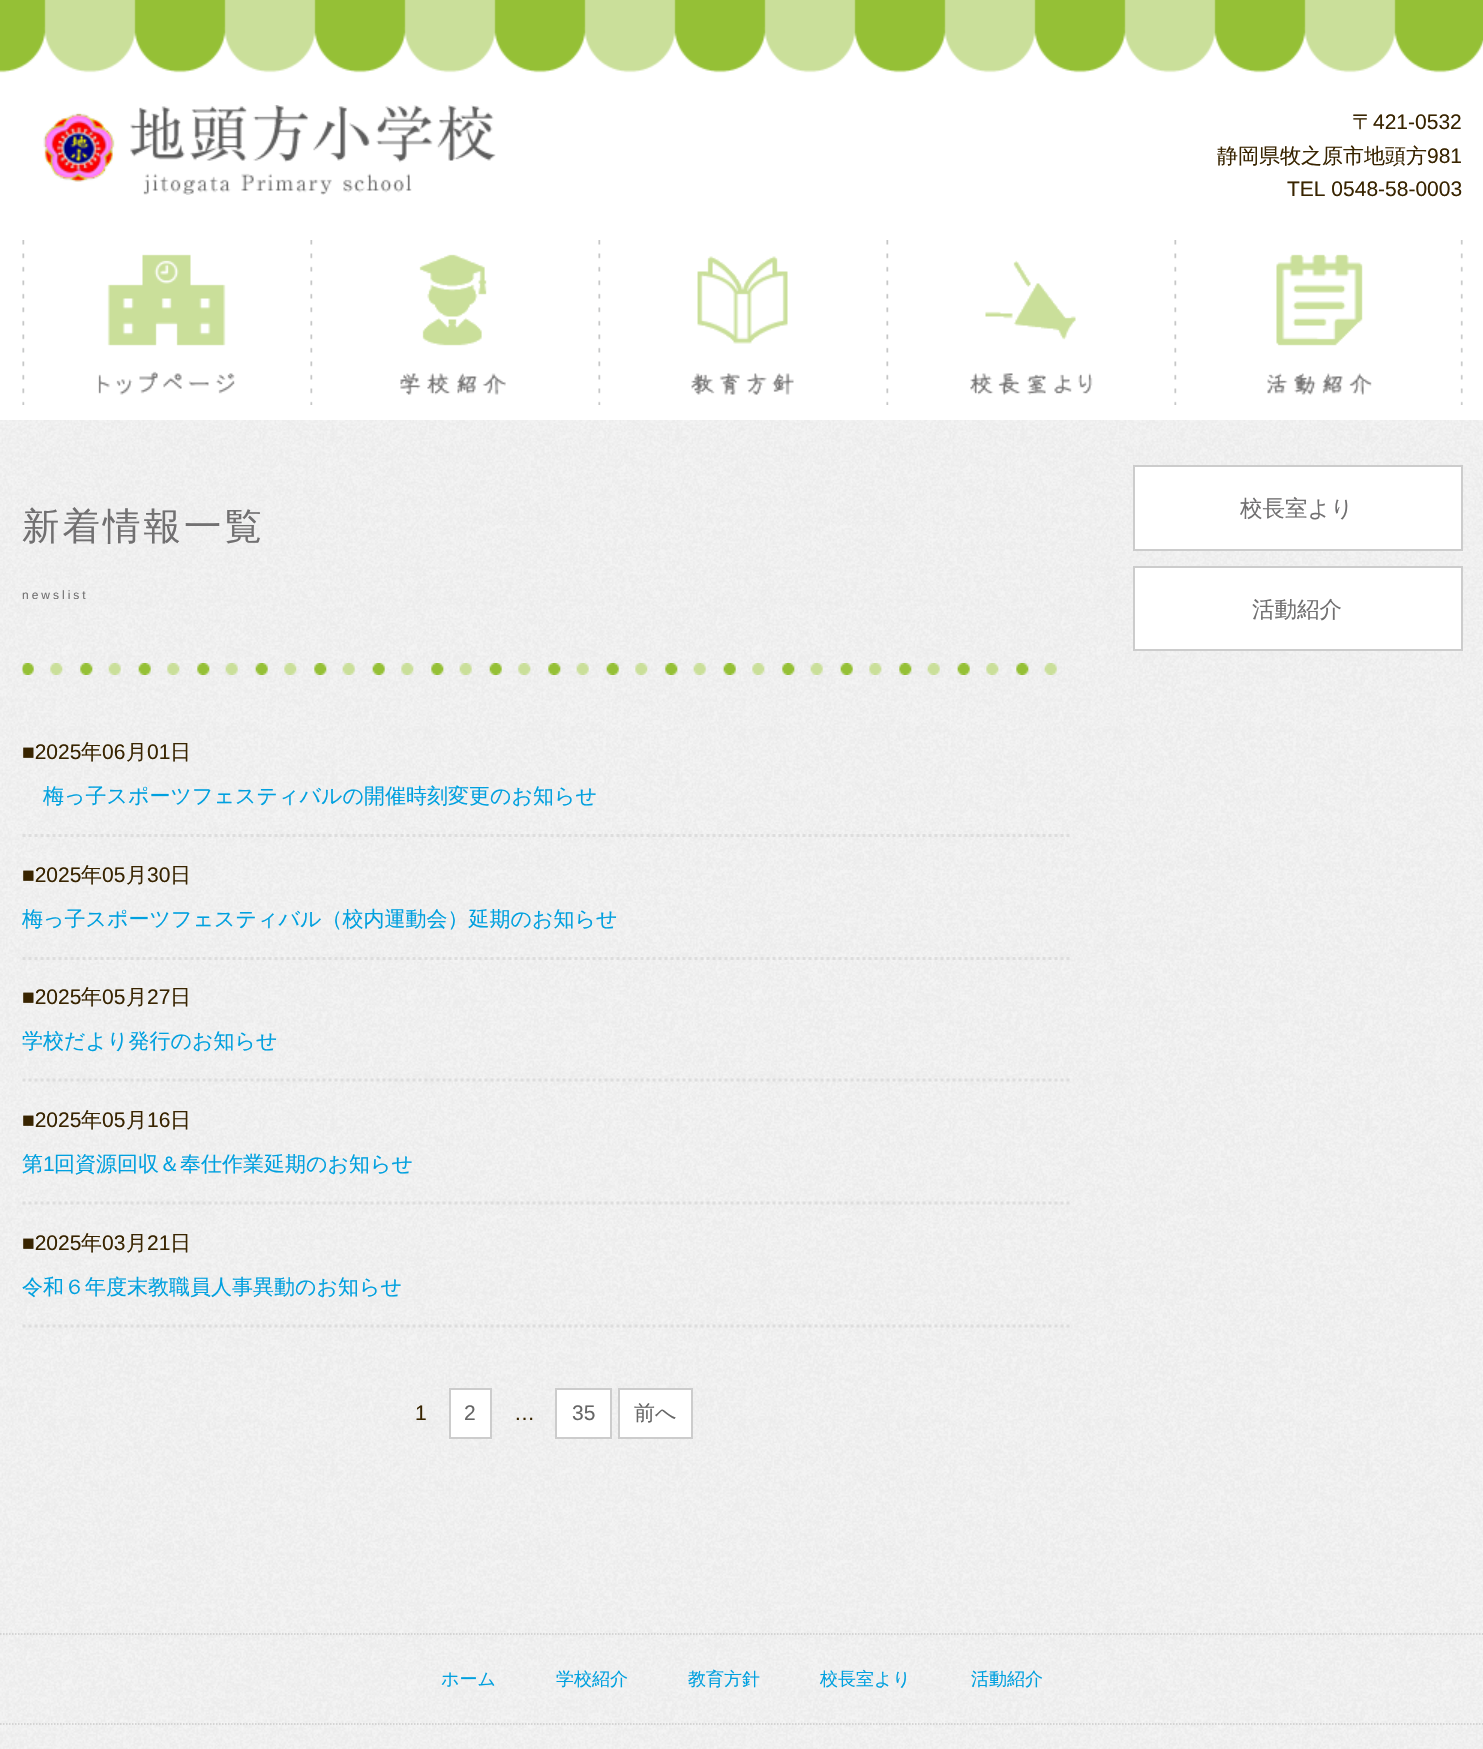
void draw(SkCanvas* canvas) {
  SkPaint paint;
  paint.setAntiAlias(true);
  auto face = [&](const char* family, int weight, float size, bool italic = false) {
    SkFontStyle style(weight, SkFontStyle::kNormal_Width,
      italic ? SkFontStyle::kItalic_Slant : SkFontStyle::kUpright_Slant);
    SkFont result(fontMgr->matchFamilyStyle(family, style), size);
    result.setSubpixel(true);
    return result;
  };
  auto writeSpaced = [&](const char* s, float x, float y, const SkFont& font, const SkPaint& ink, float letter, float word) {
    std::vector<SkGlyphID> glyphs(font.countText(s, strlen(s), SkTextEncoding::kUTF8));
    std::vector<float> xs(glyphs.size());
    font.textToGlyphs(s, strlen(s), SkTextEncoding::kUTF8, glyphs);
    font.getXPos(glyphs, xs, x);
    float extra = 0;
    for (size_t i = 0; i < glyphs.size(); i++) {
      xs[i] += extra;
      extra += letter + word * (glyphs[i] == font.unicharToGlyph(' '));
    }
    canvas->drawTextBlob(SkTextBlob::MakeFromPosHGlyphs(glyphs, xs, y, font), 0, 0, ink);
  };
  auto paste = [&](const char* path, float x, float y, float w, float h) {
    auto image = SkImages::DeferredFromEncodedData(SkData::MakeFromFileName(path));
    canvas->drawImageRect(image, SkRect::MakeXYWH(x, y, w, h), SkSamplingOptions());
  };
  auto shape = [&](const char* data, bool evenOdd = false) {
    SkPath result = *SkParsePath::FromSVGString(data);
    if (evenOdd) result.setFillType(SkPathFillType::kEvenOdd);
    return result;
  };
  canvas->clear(0xffffffff);
  paste("img/1.png", 0, 420, 1483, 1329);
  paste("img/2.png", 0, 0, 1483, 73);
  paste("img/3.png", 43, 105, 453, 90);
  paste("img/4.png", 22, 240, 1441, 165);
  paste("img/5.png", 98, 254, 137, 141);
  paste("img/6.png", 400, 254, 106, 141);
  paste("img/7.png", 691, 256, 103, 139);
  paste("img/8.png", 970, 260, 123, 135);
  paste("img/9.png", 1267, 254, 105, 141);
  paste("img/10.png", 22, 663, 1035, 12);
  paint.setStroke(true);
  paint.setStrokeWidth(3);
  paint.setColor(0xffdddddd);
  paint.setPathEffect(SkDashPathEffect::Make({{3, 3}}, 0));
  canvas->drawPath(shape("M22.5 835.5H1072.5"), paint);
  paint.setPathEffect(nullptr);
  paint.setPathEffect(SkDashPathEffect::Make({{3, 3}}, 0));
  canvas->drawPath(shape("M22.5 958.5H1072.5"), paint);
  paint.setPathEffect(nullptr);
  paint.setPathEffect(SkDashPathEffect::Make({{3, 3}}, 0));
  canvas->drawPath(shape("M22.5 1080H1072.5"), paint);
  paint.setPathEffect(nullptr);
  paint.setPathEffect(SkDashPathEffect::Make({{3, 3}}, 0));
  canvas->drawPath(shape("M22.5 1203H1072.5"), paint);
  paint.setPathEffect(nullptr);
  paint.setPathEffect(SkDashPathEffect::Make({{3, 3}}, 0));
  canvas->drawPath(shape("M22.5 1326H1072.5"), paint);
  paint.setPathEffect(nullptr);
  paint.setStroke(false);
  paint.setColor(0xffffffff);
  canvas->drawRect(SkRect::MakeXYWH(450, 1389, 41, 49), paint);
  paint.setStroke(true);
  paint.setStrokeWidth(2);
  paint.setColor(0xffcccccc);
  canvas->drawRect(SkRect::MakeXYWH(450, 1389, 41, 49), paint);
  paint.setStroke(false);
  paint.setColor(0xffffffff);
  canvas->drawRect(SkRect::MakeXYWH(556, 1389, 55, 49), paint);
  paint.setStroke(true);
  paint.setColor(0xffcccccc);
  canvas->drawRect(SkRect::MakeXYWH(556, 1389, 55, 49), paint);
  paint.setStroke(false);
  paint.setColor(0xffffffff);
  canvas->drawRect(SkRect::MakeXYWH(619, 1389, 73, 49), paint);
  paint.setStroke(true);
  paint.setColor(0xffcccccc);
  canvas->drawRect(SkRect::MakeXYWH(619, 1389, 73, 49), paint);
  paint.setStroke(false);
  paint.setColor(0xffffffff);
  canvas->drawRect(SkRect::MakeXYWH(1134, 466, 328, 84), paint);
  paint.setStroke(true);
  paint.setColor(0xffcccccc);
  canvas->drawRect(SkRect::MakeXYWH(1134, 466, 328, 84), paint);
  paint.setStroke(false);
  paint.setColor(0xffffffff);
  canvas->drawRect(SkRect::MakeXYWH(1134, 567, 328, 83), paint);
  paint.setStroke(true);
  paint.setColor(0xffcccccc);
  canvas->drawRect(SkRect::MakeXYWH(1134, 567, 328, 83), paint);
  paint.setStrokeWidth(1.5f);
  paint.setPathEffect(SkDashPathEffect::Make({{1.5f, 1.5f}}, 0));
  canvas->drawPath(shape("M0 1634H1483.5"), paint);
  paint.setPathEffect(nullptr);
  paint.setPathEffect(SkDashPathEffect::Make({{1.5f, 1.5f}}, 0));
  canvas->drawPath(shape("M0 1724H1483.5"), paint);
  paint.setPathEffect(nullptr);
  auto f0 = face("WenQuanYi Zen Hei", 500, 21);
  paint.setStroke(false);
  paint.setColor(0xff382400);
  canvas->drawString("〒", 1352, 129, f0, paint);
  auto f1 = face("Liberation Sans", 400, 21);
  canvas->drawString("421-0532", 1373, 129, f1, paint);
  canvas->drawString("静岡県牧之原市地頭方", 1217, 163, f0, paint);
  canvas->drawString("981", 1427, 163, f1, paint);
  canvas->drawString("TEL 0548-58-0003", 1287, 196, f1, paint);
  auto f2 = face("WenQuanYi Zen Hei", 500, 37.5f);
  paint.setColor(0xff717071);
  writeSpaced("新着情報一覧", 22, 539, f2, paint, 3, 0);
  auto f3 = face("Liberation Sans", 400, 12);
  writeSpaced("newslist", 22, 599, f3, paint, 3, 0);
  paint.setColor(0xff382400);
  canvas->drawString("■2025", 22, 759, f1, paint);
  canvas->drawString("年", 81, 759, f0, paint);
  canvas->drawString("06", 102, 759, f1, paint);
  canvas->drawString("月", 126, 759, f0, paint);
  canvas->drawString("01", 147, 759, f1, paint);
  canvas->drawString("日", 170, 759, f0, paint);
  paint.setColor(0xff00a0df);
  canvas->drawString("梅っ子スポーツフェスティバルの開催時刻変更のお知らせ", 43, 803, f0, paint);
  paint.setColor(0xff382400);
  canvas->drawString("■2025", 22, 882, f1, paint);
  canvas->drawString("年", 81, 882, f0, paint);
  canvas->drawString("05", 102, 882, f1, paint);
  canvas->drawString("月", 126, 882, f0, paint);
  canvas->drawString("30", 147, 882, f1, paint);
  canvas->drawString("日", 170, 882, f0, paint);
  paint.setColor(0xff00a0df);
  canvas->drawString("梅っ子スポーツフェスティバル（校内運動会）延期のお知らせ", 22, 926, f0, paint);
  paint.setColor(0xff382400);
  canvas->drawString("■2025", 22, 1004, f1, paint);
  canvas->drawString("年", 81, 1004, f0, paint);
  canvas->drawString("05", 102, 1004, f1, paint);
  canvas->drawString("月", 126, 1004, f0, paint);
  canvas->drawString("27", 147, 1004, f1, paint);
  canvas->drawString("日", 170, 1004, f0, paint);
  paint.setColor(0xff00a0df);
  canvas->drawString("学校だより発行のお知らせ", 22, 1048, f0, paint);
  paint.setColor(0xff382400);
  canvas->drawString("■2025", 22, 1127, f1, paint);
  canvas->drawString("年", 81, 1127, f0, paint);
  canvas->drawString("05", 102, 1127, f1, paint);
  canvas->drawString("月", 126, 1127, f0, paint);
  canvas->drawString("16", 147, 1127, f1, paint);
  canvas->drawString("日", 170, 1127, f0, paint);
  paint.setColor(0xff00a0df);
  canvas->drawString("第", 22, 1171, f0, paint);
  canvas->drawString("1", 43, 1171, f1, paint);
  canvas->drawString("回資源回収＆奉仕作業延期のお知らせ", 54, 1171, f0, paint);
  paint.setColor(0xff382400);
  canvas->drawString("■2025", 22, 1250, f1, paint);
  canvas->drawString("年", 81, 1250, f0, paint);
  canvas->drawString("03", 102, 1250, f1, paint);
  canvas->drawString("月", 126, 1250, f0, paint);
  canvas->drawString("21", 147, 1250, f1, paint);
  canvas->drawString("日", 170, 1250, f0, paint);
  paint.setColor(0xff00a0df);
  canvas->drawString("令和６年度末教職員人事異動のお知らせ", 22, 1294, f0, paint);
  paint.setColor(0xff382400);
  canvas->drawString("1", 415, 1420, f1, paint);
  paint.setColor(0xff666666);
  canvas->drawString("2", 464, 1420, f1, paint);
  paint.setColor(0xff382400);
  canvas->drawString("…", 514, 1420, f1, paint);
  paint.setColor(0xff666666);
  canvas->drawString("35", 572, 1420, f1, paint);
  canvas->drawString("前へ", 634, 1420, f0, paint);
  auto f4 = face("WenQuanYi Zen Hei", 500, 22.5f);
  paint.setColor(0xff717071);
  canvas->drawString("校長室より", 1240, 516, f4, paint);
  canvas->drawString("活動紹介", 1252, 617, f4, paint);
  auto f5 = face("WenQuanYi Zen Hei", 500, 18);
  paint.setColor(0xff00a0df);
  {
    const struct { const char* s; float x, y; } items[] = {
      {"ホーム", 441, 1685},
      {"学校紹介", 556, 1685},
      {"教育方針", 688, 1685},
      {"校長室より", 820, 1685},
      {"活動紹介", 971, 1685},
    };
    for (auto [s, x, y] : items) {
      canvas->drawString(s, x, y, f5, paint);
    }
  }
}
